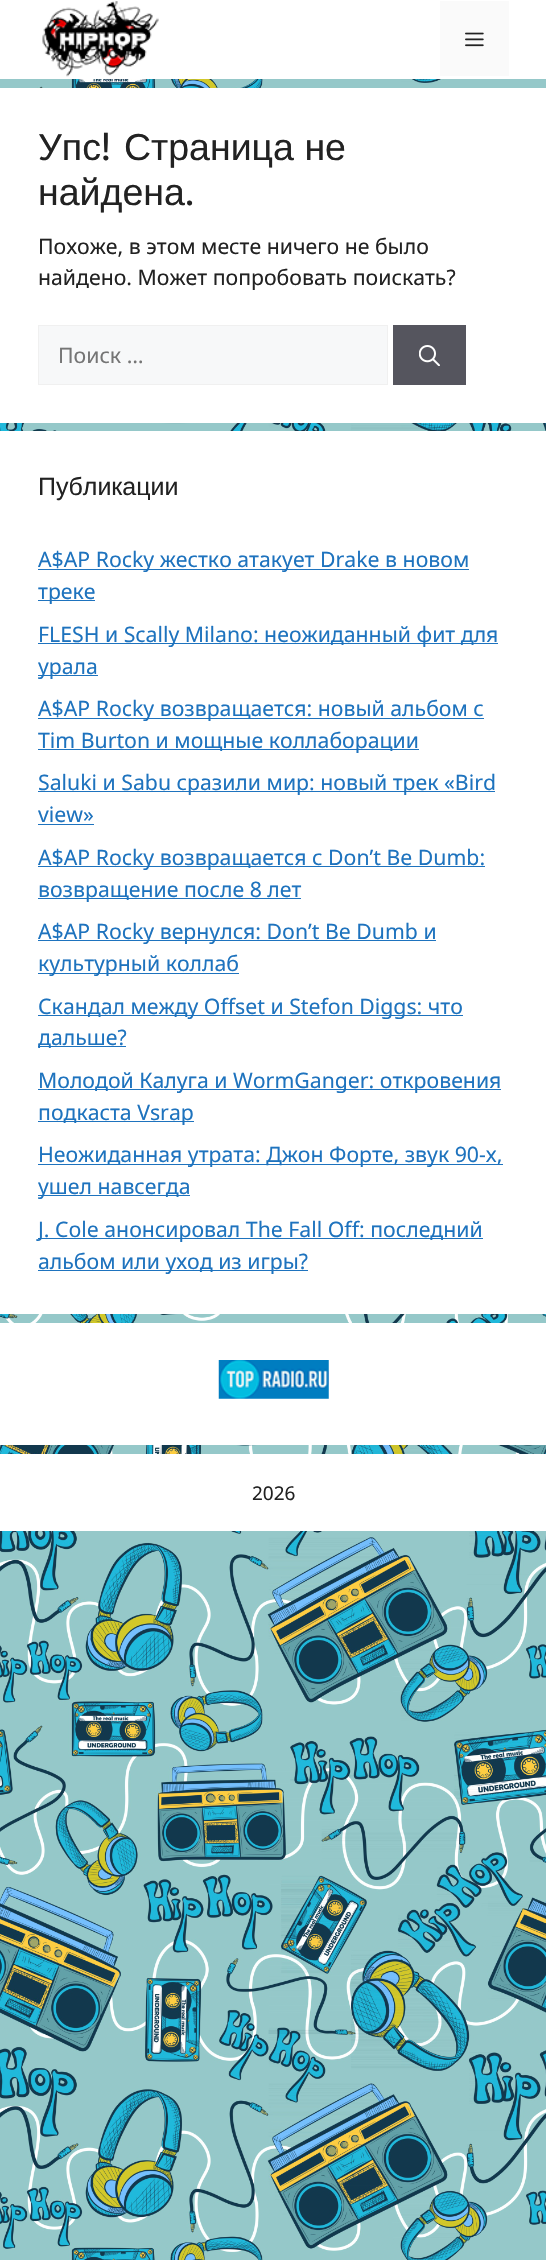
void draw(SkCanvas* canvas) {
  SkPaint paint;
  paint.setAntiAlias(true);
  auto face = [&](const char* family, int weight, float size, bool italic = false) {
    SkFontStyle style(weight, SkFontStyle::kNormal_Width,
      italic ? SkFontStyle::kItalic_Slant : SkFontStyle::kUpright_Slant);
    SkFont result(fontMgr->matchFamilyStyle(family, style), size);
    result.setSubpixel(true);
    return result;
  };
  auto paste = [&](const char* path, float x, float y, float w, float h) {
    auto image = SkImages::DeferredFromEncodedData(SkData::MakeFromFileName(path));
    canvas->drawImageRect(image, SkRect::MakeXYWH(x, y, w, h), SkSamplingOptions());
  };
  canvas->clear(0xffffffff);
  paste("img/1.png", 0, 79, 546, 2181);
  paste("img/2.png", 42, 1, 117, 76);
  paint.setColor(0xfffafafa);
  canvas->drawRect(SkRect::MakeXYWH(440, 1, 69, 75), paint);
  paste("img/3.png", 465, 32, 19, 15);
  paint.setColor(0xffffffff);
  canvas->drawRect(SkRect::MakeXYWH(0, 88, 546, 335), paint);
  paint.setColor(0xfff7f8f9);
  canvas->drawRect(SkRect::MakeXYWH(38.5f, 325.5f, 349, 59), paint);
  paint.setStroke(true);
  paint.setStrokeWidth(1);
  paint.setColor(0xfff0f0f0);
  canvas->drawRect(SkRect::MakeXYWH(38.5f, 325.5f, 349, 59), paint);
  paint.setStroke(false);
  paint.setColor(0xff55555e);
  canvas->drawRect(SkRect::MakeXYWH(393, 325, 73, 60), paint);
  paste("img/4.png", 419, 345, 21, 21);
  {
    const struct { float x, y, w, h; SkColor color; } items[] = {
      {0, 431, 546, 883, 0xffffffff},
      {38, 569, 431, 1, 0xff1e73be},
      {38, 600, 57, 1, 0xff1e73be},
      {38, 643, 460, 1, 0xff1e73be},
      {38, 675, 60, 1, 0xff1e73be},
      {38, 718, 446, 1, 0xff1e73be},
      {38, 749, 381, 1, 0xff1e73be},
      {38, 791, 457, 1, 0xff1e73be},
      {38, 824, 56, 1, 0xff1e73be},
      {38, 866, 447, 1, 0xff1e73be},
      {38, 898, 263, 1, 0xff1e73be},
      {38, 940, 398, 1, 0xff1e73be},
      {38, 973, 201, 1, 0xff1e73be},
      {38, 1015, 425, 1, 0xff1e73be},
      {38, 1046, 88, 1, 0xff1e73be},
      {38, 1089, 463, 1, 0xff1e73be},
      {38, 1121, 156, 1, 0xff1e73be},
      {38, 1164, 465, 1, 0xff1e73be},
      {38, 1195, 152, 1, 0xff1e73be},
      {38, 1238, 445, 1, 0xff1e73be},
      {38, 1270, 270, 1, 0xff1e73be},
      {0, 1323, 546, 122, 0xffffffff},
    };
    for (auto [x, y, w, h, color] : items) {
      paint.setColor(color);
      canvas->drawRect(SkRect::MakeXYWH(x, y, w, h), paint);
    }
  }
  paste("img/5.png", 218, 1360, 111, 39);
  canvas->drawRect(SkRect::MakeXYWH(0, 1454, 546, 77), paint);
  auto f0 = face("Liberation Sans", 400, 37.5f);
  paint.setColor(0xff222222);
  canvas->drawString("Упс", 38, 160, f0, paint);
  auto f1 = face("ABeeZee", 400, 37.5f);
  canvas->drawString("!", 100, 160, f1, paint);
  canvas->drawString("Страница не", 124, 160, f0, paint);
  canvas->drawString("найдена", 38, 205, f0, paint);
  canvas->drawString(".", 184, 205, f1, paint);
  auto f2 = face("Noto Sans", 400, 21.25f);
  canvas->drawString("Похоже, в этом месте ничего не было", 38, 254, f2, paint);
  canvas->drawString("найдено. Может попробовать поискать?", 38, 285, f2, paint);
  paint.setColor(0xff757575);
  canvas->drawString("Поиск …", 58, 363, f2, paint);
  auto f3 = face("Liberation Sans", 400, 25);
  paint.setColor(0xff222222);
  canvas->drawString("Публикации", 38, 495, f3, paint);
  paint.setColor(0xff1e73be);
  {
    const struct { const char* s; float x, y; } items[] = {
      {"A$AP Rocky жестко атакует Drake в новом", 38, 567},
      {"треке", 38, 599},
      {"FLESH и Scally Milano: неожиданный фит для", 38, 642},
      {"урала", 38, 674},
      {"A$AP Rocky возвращается: новый альбом с", 38, 716},
      {"Tim Burton и мощные коллаборации", 38, 748},
      {"Saluki и Sabu сразили мир: новый трек «Bird", 38, 790},
      {"view»", 38, 822},
      {"A$AP Rocky возвращается с Don’t Be Dumb:", 38, 865},
      {"возвращение после 8 лет", 38, 897},
      {"A$AP Rocky вернулся: Don’t Be Dumb и", 38, 939},
      {"культурный коллаб", 38, 971},
      {"Скандал между Offset и Stefon Diggs: что", 38, 1014},
      {"дальше?", 38, 1045},
      {"Молодой Калуга и WormGanger: откровения", 38, 1088},
      {"подкаста Vsrap", 38, 1120},
      {"Неожиданная утрата: Джон Форте, звук 90-х,", 38, 1162},
      {"ушел навсегда", 38, 1194},
      {"J. Cole анонсировал The Fall Off: последний", 38, 1237},
      {"альбом или уход из игры?", 38, 1269},
    };
    for (auto [s, x, y] : items) {
      canvas->drawString(s, x, y, f2, paint);
    }
  }
  auto f4 = face("Noto Sans", 400, 19);
  paint.setColor(0xff222222);
  canvas->drawString("2026", 252, 1500, f4, paint);
}
